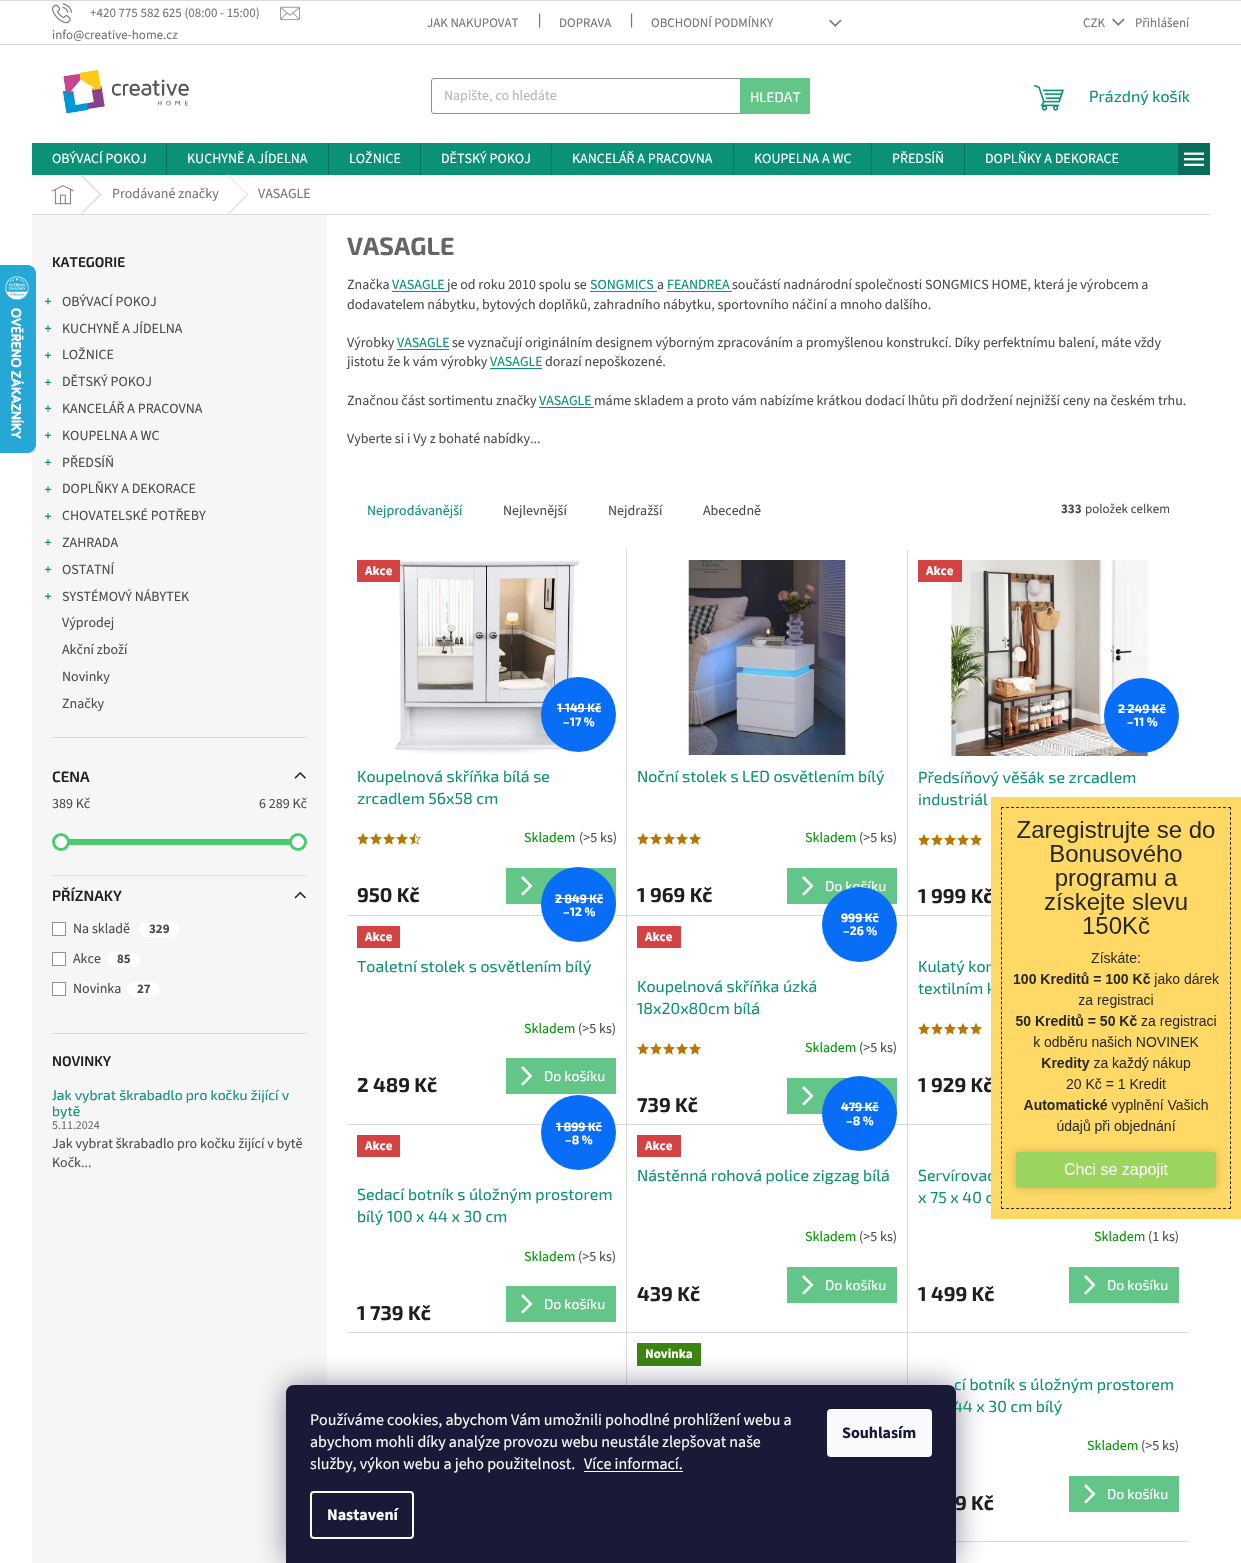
void draw(SkCanvas* canvas) {
  SkPaint paint;
  paint.setAntiAlias(true);
  auto face = [&](const char* family, int weight, float size, bool italic = false) {
    SkFontStyle style(weight, SkFontStyle::kNormal_Width,
      italic ? SkFontStyle::kItalic_Slant : SkFontStyle::kUpright_Slant);
    SkFont result(fontMgr->matchFamilyStyle(family, style), size);
    result.setSubpixel(true);
    return result;
  };
  auto paste = [&](const char* path, float x, float y, float w, float h) {
    auto image = SkImages::DeferredFromEncodedData(SkData::MakeFromFileName(path));
    canvas->drawImageRect(image, SkRect::MakeXYWH(x, y, w, h), SkSamplingOptions());
  };
  auto shape = [&](const char* data, bool evenOdd = false) {
    SkPath result = *SkParsePath::FromSVGString(data);
    if (evenOdd) result.setFillType(SkPathFillType::kEvenOdd);
    return result;
  };
  canvas->clear(0xffffffff);
  paint.setColor(0xfff6f6f6);
  canvas->drawRect(SkRect::MakeXYWH(32, 215, 295, 1348), paint);
  paste("img/1.png", 0, 265, 36, 188);
  paint.setColor(0xffdadada);
  canvas->drawRect(SkRect::MakeXYWH(0, 0, 1241, 1), paint);
  canvas->drawRect(SkRect::MakeXYWH(0, 44, 1241, 1), paint);
  paste("img/2.png", 52, 3, 20, 21);
  paste("img/3.png", 280, 6, 20, 14);
  paste("img/4.png", 829, 19, 13, 8);
  paste("img/4.png", 1112, 18, 13, 8);
  paste("img/5.png", 62, 69, 127, 45);
  paint.setStroke(true);
  paint.setStrokeWidth(1);
  paint.setColor(0xff919191);
  canvas->drawRoundRect(SkRect::MakeXYWH(431.5f, 78.5f, 378, 35), 2.5f, 2.5f, paint);
  paint.setStroke(false);
  paint.setColor(0xff63c588);
  canvas->drawRect(SkRect::MakeXYWH(740, 78, 70, 36), paint);
  paste("img/6.png", 1034, 85, 30, 26);
  {
    const struct { float x, y, w, h; SkColor color; } items[] = {
      {32, 143, 1146, 32, 0xff0a9176},
      {166, 143, 1, 32, 0xff086e59},
      {328, 143, 1, 32, 0xff086e59},
      {420, 143, 1, 32, 0xff086e59},
      {551, 143, 1, 32, 0xff086e59},
      {733, 143, 1, 32, 0xff086e59},
      {871, 143, 1, 32, 0xff086e59},
      {964, 143, 1, 32, 0xff086e59},
      {1178, 143, 32, 32, 0xff086e59},
    };
    for (auto [x, y, w, h, color] : items) {
      paint.setColor(color);
      canvas->drawRect(SkRect::MakeXYWH(x, y, w, h), paint);
    }
  }
  paste("img/7.png", 1184, 152, 20, 14);
  paint.setColor(0xffdadada);
  canvas->drawRect(SkRect::MakeXYWH(32, 214, 1178, 1), paint);
  paste("img/8.png", 52, 185, 22, 20);
  canvas->drawPath(shape("M80.5 175.5L81.5 174.5L101.5 195L100.5 195.5Z"), paint);
  canvas->drawPath(shape("M100.5 193.5L101.5 194.5L81.5 214.5L80.5 214Z"), paint);
  canvas->drawPath(shape("M227 174.5L227.5 174L248.5 195L248 195.5Z"), paint);
  canvas->drawPath(shape("M248 193.5L248.5 194.5L227.5 215.5L227 214.5Z"), paint);
  canvas->drawRect(SkRect::MakeXYWH(52, 737, 255, 1), paint);
  paste("img/9.png", 45, 298, 6, 7);
  paste("img/9.png", 45, 325, 6, 7);
  paste("img/9.png", 45, 352, 6, 7);
  paste("img/9.png", 45, 379, 6, 7);
  paste("img/9.png", 45, 405, 6, 7);
  paste("img/9.png", 45, 432, 6, 7);
  paste("img/9.png", 45, 459, 6, 7);
  paste("img/9.png", 45, 486, 6, 7);
  paste("img/9.png", 45, 513, 6, 7);
  paste("img/9.png", 45, 539, 6, 7);
  paste("img/9.png", 45, 566, 6, 7);
  paste("img/9.png", 45, 593, 6, 7);
  canvas->drawRect(SkRect::MakeXYWH(52, 1033, 255, 1), paint);
  paste("img/10.png", 294, 772, 12, 7);
  paint.setColor(0xffffffff);
  canvas->drawRect(SkRect::MakeXYWH(52, 839, 255, 6), paint);
  paint.setColor(0xff49cc70);
  canvas->drawRect(SkRect::MakeXYWH(61, 839, 237, 6), paint);
  canvas->drawCircle(61, 842, 9, paint);
  paint.setColor(0xffffffff);
  canvas->drawCircle(61, 842, 5.5f, paint);
  paint.setStroke(true);
  canvas->drawCircle(61, 842, 5.5f, paint);
  paint.setStroke(false);
  paint.setColor(0xff49cc70);
  canvas->drawCircle(298, 842, 9, paint);
  paint.setColor(0xffffffff);
  canvas->drawCircle(298, 842, 5.5f, paint);
  paint.setStroke(true);
  canvas->drawCircle(298, 842, 5.5f, paint);
  paint.setStroke(false);
  paint.setColor(0xffdddddd);
  canvas->drawRect(SkRect::MakeXYWH(52, 875, 255, 1), paint);
  paste("img/11.png", 294, 891, 12, 8);
  paint.setColor(0xffffffff);
  canvas->drawRect(SkRect::MakeXYWH(52.5f, 922.5f, 13, 13), paint);
  paint.setStroke(true);
  paint.setColor(0xff919191);
  canvas->drawRect(SkRect::MakeXYWH(52.5f, 922.5f, 13, 13), paint);
  paint.setStroke(false);
  paint.setColor(0xffffffff);
  canvas->drawRoundRect(SkRect::MakeXYWH(139, 922, 40, 15), 7.5f, 7.5f, paint);
  canvas->drawRect(SkRect::MakeXYWH(52.5f, 952.5f, 13, 13), paint);
  paint.setStroke(true);
  paint.setColor(0xff919191);
  canvas->drawRect(SkRect::MakeXYWH(52.5f, 952.5f, 13, 13), paint);
  paint.setStroke(false);
  paint.setColor(0xffffffff);
  canvas->drawRoundRect(SkRect::MakeXYWH(107, 952, 33, 15), 7.5f, 7.5f, paint);
  canvas->drawRect(SkRect::MakeXYWH(52.5f, 982.5f, 13, 13), paint);
  paint.setStroke(true);
  paint.setColor(0xff919191);
  canvas->drawRect(SkRect::MakeXYWH(52.5f, 982.5f, 13, 13), paint);
  paint.setStroke(false);
  paint.setColor(0xffffffff);
  canvas->drawRoundRect(SkRect::MakeXYWH(127, 982, 33, 15), 7.5f, 7.5f, paint);
  {
    const struct { float x, y, w, h; SkColor color; } items[] = {
      {392, 291, 55, 1, 0xff0a9176},
      {590, 291, 67, 1, 0xff0a9176},
      {667, 291, 65, 1, 0xff0a9176},
      {397, 349, 52, 1, 0xff0a9176},
      {490, 368, 52, 1, 0xff0a9176},
      {539, 407, 55, 1, 0xff0a9176},
      {626, 550, 1, 365, 0xffdadada},
    };
    for (auto [x, y, w, h, color] : items) {
      paint.setColor(color);
      canvas->drawRect(SkRect::MakeXYWH(x, y, w, h), paint);
    }
  }
  paste("img/12.png", 393, 560, 187, 195);
  paint.setColor(0xffd34343);
  canvas->drawRect(SkRect::MakeXYWH(357, 560, 43, 22), paint);
  paint.setColor(0xff086df7);
  canvas->drawCircle(578.5f, 714.5f, 37.5f, paint);
  paint.setColor(0xffffffff);
  canvas->drawRect(SkRect::MakeXYWH(557, 708, 44, 1), paint);
  paste("img/13.png", 357, 833, 12, 12);
  paste("img/13.png", 370, 833, 12, 12);
  paste("img/13.png", 383, 833, 12, 12);
  paste("img/13.png", 396, 833, 12, 12);
  paste("img/14.png", 409, 833, 12, 12);
  paint.setColor(0xff63c588);
  canvas->drawRect(SkRect::MakeXYWH(506, 868, 110, 36), paint);
  paint.setColor(0xffffffff);
  canvas->drawPath(shape("M523 895.5L521 894L529 886L521 878L523 876L532.5 886Z"), paint);
  paint.setColor(0xffdadada);
  canvas->drawRect(SkRect::MakeXYWH(907, 550, 1, 365), paint);
  paste("img/15.png", 686, 560, 162, 195);
  paste("img/13.png", 637, 833, 12, 12);
  paste("img/13.png", 650, 833, 12, 12);
  paste("img/13.png", 663, 833, 12, 12);
  paste("img/13.png", 676, 833, 12, 12);
  paste("img/13.png", 689, 833, 12, 12);
  paint.setColor(0xff63c588);
  canvas->drawRect(SkRect::MakeXYWH(787, 868, 110, 36), paint);
  paint.setColor(0xffffffff);
  canvas->drawPath(shape("M804 895.5L802 894L810 886L802 878L804 876L813.5 886Z"), paint);
  paste("img/16.png", 948, 560, 202, 196);
  paint.setColor(0xffd34343);
  canvas->drawRect(SkRect::MakeXYWH(918, 560, 44, 22), paint);
  paint.setColor(0xff086df7);
  canvas->drawCircle(1141.5f, 715.5f, 37.5f, paint);
  paint.setColor(0xffffffff);
  canvas->drawRect(SkRect::MakeXYWH(1118, 709, 48, 1), paint);
  paste("img/13.png", 918, 834, 12, 12);
  paste("img/13.png", 931, 834, 12, 12);
  paste("img/13.png", 944, 834, 12, 12);
  paste("img/13.png", 957, 834, 12, 12);
  paste("img/13.png", 970, 834, 12, 12);
  paint.setColor(0xffdadada);
  canvas->drawRect(SkRect::MakeXYWH(347, 915, 644, 1), paint);
  canvas->drawRect(SkRect::MakeXYWH(626, 915, 1, 209), paint);
  paint.setColor(0xff086df7);
  canvas->drawCircle(578.5f, 904.5f, 37.5f, paint);
  {
    const struct { float x, y, w, h; SkColor color; } items[] = {
      {555, 898, 48, 1, 0xffffffff},
      {357, 926, 43, 22, 0xffd34343},
      {506, 1058, 110, 36, 0xff63c588},
    };
    for (auto [x, y, w, h, color] : items) {
      paint.setColor(color);
      canvas->drawRect(SkRect::MakeXYWH(x, y, w, h), paint);
    }
  }
  paint.setColor(0xffffffff);
  canvas->drawPath(shape("M523 1085.5L521 1084L529 1076L521 1068L523 1066L532.5 1076Z"), paint);
  paint.setColor(0xffdadada);
  canvas->drawRect(SkRect::MakeXYWH(907, 915, 1, 209), paint);
  paint.setColor(0xffd34343);
  canvas->drawRect(SkRect::MakeXYWH(637, 926, 44, 22), paint);
  paste("img/13.png", 637, 1043, 12, 12);
  paste("img/13.png", 650, 1043, 12, 12);
  paste("img/13.png", 663, 1043, 12, 12);
  paste("img/13.png", 676, 1043, 12, 12);
  paste("img/13.png", 689, 1043, 12, 12);
  paint.setColor(0xff63c588);
  canvas->drawRect(SkRect::MakeXYWH(787, 1078, 110, 36), paint);
  paint.setColor(0xffffffff);
  canvas->drawPath(shape("M804 1105.5L802 1104L810 1096L802 1088L804 1086L813.5 1096Z"), paint);
  paste("img/13.png", 918, 1023, 12, 12);
  paste("img/13.png", 931, 1023, 12, 12);
  paste("img/13.png", 944, 1023, 12, 12);
  paste("img/13.png", 957, 1023, 12, 12);
  paste("img/13.png", 970, 1023, 12, 12);
  {
    const struct { float x, y, w, h; SkColor color; } items[] = {
      {347, 1124, 644, 1, 0xffdadada},
      {626, 1124, 1, 208, 0xffdadada},
      {357, 1135, 43, 22, 0xffd34343},
    };
    for (auto [x, y, w, h, color] : items) {
      paint.setColor(color);
      canvas->drawRect(SkRect::MakeXYWH(x, y, w, h), paint);
    }
  }
  paint.setColor(0xff086df7);
  canvas->drawCircle(578.5f, 1132.5f, 37.5f, paint);
  paint.setColor(0xffffffff);
  canvas->drawRect(SkRect::MakeXYWH(556, 1126, 46, 1), paint);
  paint.setColor(0xff63c588);
  canvas->drawRect(SkRect::MakeXYWH(506, 1286, 110, 36), paint);
  paint.setColor(0xffffffff);
  canvas->drawPath(shape("M523 1313.5L521 1312L529 1304L521 1296L523 1294L532.5 1304Z"), paint);
  paint.setColor(0xffdadada);
  canvas->drawRect(SkRect::MakeXYWH(907, 1124, 1, 208), paint);
  paint.setColor(0xff086df7);
  canvas->drawCircle(859.5f, 1113.5f, 37.5f, paint);
  {
    const struct { float x, y, w, h; SkColor color; } items[] = {
      {841, 1107, 38, 1, 0xffffffff},
      {637, 1135, 44, 22, 0xffd34343},
      {787, 1267, 110, 36, 0xff63c588},
    };
    for (auto [x, y, w, h, color] : items) {
      paint.setColor(color);
      canvas->drawRect(SkRect::MakeXYWH(x, y, w, h), paint);
    }
  }
  paint.setColor(0xffffffff);
  canvas->drawPath(shape("M804 1294.5L802 1293L810 1285L802 1277L804 1275L813.5 1285Z"), paint);
  paint.setColor(0xff63c588);
  canvas->drawRect(SkRect::MakeXYWH(1069, 1267, 110, 36), paint);
  paint.setColor(0xffffffff);
  canvas->drawPath(shape("M1086 1294.5L1084 1293L1092 1285L1084 1277L1086 1275L1095.5 1285Z"), paint);
  {
    const struct { float x, y, w, h; SkColor color; } items[] = {
      {347, 1332, 842, 1, 0xffdadada},
      {626, 1332, 1, 53, 0xffdadada},
      {907, 1332, 1, 53, 0xffdadada},
      {637, 1343, 64, 23, 0xff3c840f},
      {1069, 1476, 110, 36, 0xff63c588},
    };
    for (auto [x, y, w, h, color] : items) {
      paint.setColor(color);
      canvas->drawRect(SkRect::MakeXYWH(x, y, w, h), paint);
    }
  }
  paint.setColor(0xffffffff);
  canvas->drawPath(shape("M1086 1503.5L1084 1502L1092 1494L1084 1486L1086 1484L1095.5 1494Z"), paint);
  paint.setColor(0xffdadada);
  canvas->drawRect(SkRect::MakeXYWH(956, 1541, 233, 1), paint);
  paint.setColor(0x801b1939);
  paint.setMaskFilter(SkMaskFilter::MakeBlur(kNormal_SkBlurStyle, 15));
  canvas->drawRoundRect(SkRect::MakeXYWH(286, 1385, 670, 178), 8, 8, paint);
  paint.setMaskFilter(nullptr);
  auto f0 = face("Source Sans 3", 400, 13);
  paint.setColor(0xff767676);
  {
    const struct { const char* s; float x, y; } items[] = {
      {"+420 775 582 625 (08:00 - 15:00)", 90, 17},
      {"info@creative-home.cz", 52, 39},
      {"JAK NAKUPOVAT", 427, 27},
    };
    for (auto [s, x, y] : items) {
      canvas->drawString(s, x, y, f0, paint);
    }
  }
  auto f1 = face("Source Sans 3", 400, 14);
  paint.setColor(0xff4d4d4d);
  canvas->drawString("|", 538, 24, f1, paint);
  paint.setColor(0xff767676);
  canvas->drawString("DOPRAVA", 559, 27, f0, paint);
  paint.setColor(0xff4d4d4d);
  canvas->drawString("|", 630, 24, f1, paint);
  paint.setColor(0xff767676);
  {
    const struct { const char* s; float x, y; } items[] = {
      {"OBCHODNÍ PODMÍNKY", 651, 27},
      {"CZK", 1083, 27},
      {"Přihlášení", 1135, 27},
    };
    for (auto [s, x, y] : items) {
      canvas->drawString(s, x, y, f0, paint);
    }
  }
  paint.setColor(0xffb6b6b6);
  canvas->drawString("Napište, co hledáte", 444, 100, f1, paint);
  auto f2 = face("Exo 2", 400, 14);
  paint.setColor(0xffffffff);
  canvas->drawString("HLEDAT", 750, 102, f2, paint);
  auto f3 = face("Exo 2", 400, 16);
  paint.setColor(0xff0a9176);
  canvas->drawString("Prázdný košík", 1089, 102, f3, paint);
  paint.setColor(0xffffffff);
  {
    const struct { const char* s; float x, y; } items[] = {
      {"OBÝVACÍ POKOJ", 52, 163},
      {"KUCHYNĚ A JÍDELNA", 187, 163},
      {"LOŽNICE", 349, 163},
      {"DĚTSKÝ POKOJ", 441, 163},
      {"KANCELÁŘ A PRACOVNA", 572, 163},
      {"KOUPELNA A WC", 754, 163},
      {"PŘEDSÍŇ", 892, 163},
      {"DOPLŇKY A DEKORACE", 985, 163},
    };
    for (auto [s, x, y] : items) {
      canvas->drawString(s, x, y, f1, paint);
    }
  }
  paint.setColor(0xff767676);
  canvas->drawString("Prodávané značky", 112, 198, f1, paint);
  canvas->drawString("VASAGLE", 258, 198, f1, paint);
  auto f4 = face("Exo 2", 600, 14);
  paint.setColor(0xff1f1f1f);
  canvas->drawString("KATEGORIE", 52, 267, f4, paint);
  paint.setColor(0xff4d4d4d);
  {
    const struct { const char* s; float x, y; } items[] = {
      {"OBÝVACÍ POKOJ", 62, 306},
      {"KUCHYNĚ A JÍDELNA", 62, 333},
      {"LOŽNICE", 62, 359},
      {"DĚTSKÝ POKOJ", 62, 386},
      {"KANCELÁŘ A PRACOVNA", 62, 413},
      {"KOUPELNA A WC", 62, 440},
      {"PŘEDSÍŇ", 62, 467},
      {"DOPLŇKY A DEKORACE", 62, 493},
      {"CHOVATELSKÉ POTŘEBY", 62, 520},
      {"ZAHRADA", 62, 547},
      {"OSTATNÍ", 62, 574},
      {"SYSTÉMOVÝ NÁBYTEK", 62, 601},
      {"Výprodej", 62, 627},
      {"Akční zboží", 62, 654},
      {"Novinky", 62, 681},
      {"Značky", 62, 708},
    };
    for (auto [s, x, y] : items) {
      canvas->drawString(s, x, y, f1, paint);
    }
  }
  auto f5 = face("Exo 2", 600, 15);
  paint.setColor(0xff1f1f1f);
  canvas->drawString("CENA", 52, 782, f5, paint);
  paint.setColor(0xff4d4d4d);
  canvas->drawString("389 Kč", 52, 808, f1, paint);
  canvas->drawString("6 289 Kč", 259, 808, f1, paint);
  paint.setColor(0xff1f1f1f);
  canvas->drawString("PŘÍZNAKY", 52, 901, f5, paint);
  paint.setColor(0xff4d4d4d);
  canvas->drawString("Na skladě", 73, 933, f1, paint);
  auto f6 = face("Source Sans 3", 700, 13);
  canvas->drawString("329", 149, 933, f6, paint);
  canvas->drawString("Akce", 73, 963, f1, paint);
  canvas->drawString("85", 117, 963, f6, paint);
  canvas->drawString("Novinka", 73, 993, f1, paint);
  canvas->drawString("27", 137, 993, f6, paint);
  paint.setColor(0xff1f1f1f);
  canvas->drawString("NOVINKY", 52, 1066, f4, paint);
  paint.setColor(0xff0a9176);
  canvas->drawString("Jak vybrat škrabadlo pro kočku žijící v", 52, 1100, f2, paint);
  canvas->drawString("bytě", 52, 1116, f2, paint);
  auto f7 = face("Source Sans 3", 400, 12);
  paint.setColor(0xff707070);
  canvas->drawString("5.11.2024", 52, 1129, f7, paint);
  paint.setColor(0xff4d4d4d);
  canvas->drawString("Jak vybrat škrabadlo pro kočku žijící v bytě", 52, 1148, f1, paint);
  canvas->drawString("Kočk...", 52, 1167, f1, paint);
  auto f8 = face("Exo 2", 700, 25);
  paint.setColor(0xff656565);
  canvas->drawString("VASAGLE", 347, 255, f8, paint);
  paint.setColor(0xff4d4d4d);
  canvas->drawString("Značka", 347, 289, f1, paint);
  paint.setColor(0xff0a9176);
  canvas->drawString("VASAGLE", 392, 289, f1, paint);
  paint.setColor(0xff4d4d4d);
  canvas->drawString("je od roku 2010 spolu se", 447, 289, f1, paint);
  paint.setColor(0xff0a9176);
  canvas->drawString("SONGMICS", 590, 289, f1, paint);
  paint.setColor(0xff4d4d4d);
  canvas->drawString("a", 657, 289, f1, paint);
  paint.setColor(0xff0a9176);
  canvas->drawString("FEANDREA", 667, 289, f1, paint);
  paint.setColor(0xff4d4d4d);
  {
    const struct { const char* s; float x, y; } items[] = {
      {"součástí nadnárodní společnosti SONGMICS HOME, která je výrobcem a", 732, 289},
      {"dodavatelem nábytku, bytových doplňků, zahradního nábytku, sportovního náčiní a mnoho dalšího.", 347, 309},
      {"Výrobky", 347, 347},
    };
    for (auto [s, x, y] : items) {
      canvas->drawString(s, x, y, f1, paint);
    }
  }
  paint.setColor(0xff0a9176);
  canvas->drawString("VASAGLE", 397, 347, f1, paint);
  paint.setColor(0xff4d4d4d);
  canvas->drawString("se vyznačují originálním designem výborným zpracováním a promyšlenou konstrukcí. Díky perfektnímu balení, máte vždy", 452, 347, f1, paint);
  canvas->drawString("jistotu že k vám výrobky", 347, 366, f1, paint);
  paint.setColor(0xff0a9176);
  canvas->drawString("VASAGLE", 490, 366, f1, paint);
  paint.setColor(0xff4d4d4d);
  canvas->drawString("dorazí nepoškozené.", 545, 366, f1, paint);
  canvas->drawString("Značnou část sortimentu značky", 347, 405, f1, paint);
  paint.setColor(0xff0a9176);
  canvas->drawString("VASAGLE", 539, 405, f1, paint);
  paint.setColor(0xff4d4d4d);
  canvas->drawString("máme skladem a proto vám nabízíme krátkou dodací lhůtu při dodržení nejnižší ceny na českém trhu.", 594, 405, f1, paint);
  canvas->drawString("Vyberte si i Vy z bohaté nabídky...", 347, 443, f1, paint);
  paint.setColor(0xff0a9176);
  canvas->drawString("Nejprodávanější", 367, 515, f1, paint);
  paint.setColor(0xff4d4d4d);
  {
    const struct { const char* s; float x, y; } items[] = {
      {"Nejlevnější", 503, 515},
      {"Nejdražší", 608, 515},
      {"Abecedně", 703, 515},
    };
    for (auto [s, x, y] : items) {
      canvas->drawString(s, x, y, f1, paint);
    }
  }
  canvas->drawString("333", 1061, 513, f6, paint);
  canvas->drawString("položek celkem", 1085, 513, f0, paint);
  paint.setColor(0xffffffff);
  canvas->drawString("Akce", 365, 575, f6, paint);
  auto f9 = face("Exo 2", 700, 12);
  canvas->drawString("1 149 Kč", 557, 712, f9, paint);
  canvas->drawString("–17 %", 563, 726, f9, paint);
  paint.setColor(0xff0a9176);
  canvas->drawString("Koupelnová skříňka bílá se", 357, 782, f3, paint);
  canvas->drawString("zrcadlem 56x58 cm", 357, 804, f3, paint);
  paint.setColor(0xff009901);
  canvas->drawString("Skladem", 524, 842, f1, paint);
  paint.setColor(0xff4d4d4d);
  canvas->drawString("(>5 ks)", 579, 842, f1, paint);
  auto f10 = face("Exo 2", 700, 20);
  paint.setColor(0xff1f1f1f);
  canvas->drawString("950 Kč", 357, 902, f10, paint);
  paint.setColor(0xff0a9176);
  canvas->drawString("Noční stolek s LED osvětlením bílý", 637, 782, f3, paint);
  paint.setColor(0xff009901);
  canvas->drawString("Skladem", 805, 842, f1, paint);
  paint.setColor(0xff4d4d4d);
  canvas->drawString("(>5 ks)", 859, 842, f1, paint);
  paint.setColor(0xff1f1f1f);
  canvas->drawString("1 969 Kč", 637, 902, f10, paint);
  paint.setColor(0xffffffff);
  canvas->drawString("Do košíku", 825, 891, f2, paint);
  canvas->drawString("Akce", 926, 575, f6, paint);
  canvas->drawString("2 249 Kč", 1118, 713, f9, paint);
  canvas->drawString("–11 %", 1127, 726, f9, paint);
  paint.setColor(0xff0a9176);
  canvas->drawString("Předsíňový věšák se zrcadlem", 918, 783, f3, paint);
  canvas->drawString("industriál", 918, 805, f3, paint);
  paint.setColor(0xff1f1f1f);
  canvas->drawString("1 999 Kč", 918, 903, f10, paint);
  paint.setColor(0xffffffff);
  canvas->drawString("2 849 Kč", 555, 903, f9, paint);
  canvas->drawString("–12 %", 563, 916, f9, paint);
  canvas->drawString("Akce", 365, 941, f6, paint);
  paint.setColor(0xff0a9176);
  canvas->drawString("Toaletní stolek s osvětlením bílý", 357, 972, f3, paint);
  paint.setColor(0xff009901);
  canvas->drawString("Skladem", 524, 1033, f1, paint);
  paint.setColor(0xff4d4d4d);
  canvas->drawString("(>5 ks)", 578, 1033, f1, paint);
  paint.setColor(0xff1f1f1f);
  canvas->drawString("2 489 Kč", 357, 1092, f10, paint);
  paint.setColor(0xffffffff);
  canvas->drawString("Do košíku", 544, 1081, f2, paint);
  canvas->drawString("Akce", 645, 941, f6, paint);
  paint.setColor(0xff086df7);
  canvas->drawCircle(859.5f, 924.5f, 37.5f, paint);
  paint.setColor(0xffffffff);
  canvas->drawString("999 Kč", 841, 922, f9, paint);
  canvas->drawRect(SkRect::MakeXYWH(841, 917, 38, 1), paint);
  canvas->drawString("–26 %", 843, 935, f9, paint);
  paint.setColor(0xff0a9176);
  canvas->drawString("Koupelnová skříňka úzká", 637, 992, f3, paint);
  canvas->drawString("18x20x80cm bílá", 637, 1014, f3, paint);
  paint.setColor(0xff009901);
  canvas->drawString("Skladem", 805, 1052, f1, paint);
  paint.setColor(0xff4d4d4d);
  canvas->drawString("(>5 ks)", 859, 1052, f1, paint);
  paint.setColor(0xff1f1f1f);
  canvas->drawString("739 Kč", 637, 1112, f10, paint);
  paint.setColor(0xff0a9176);
  canvas->drawString("Kulatý kon", 918, 972, f3, paint);
  canvas->drawString("textilním k", 918, 994, f3, paint);
  paint.setColor(0xff1f1f1f);
  canvas->drawString("1 929 Kč", 918, 1092, f10, paint);
  paint.setColor(0xffffffff);
  canvas->drawString("Akce", 365, 1150, f6, paint);
  canvas->drawString("1 899 Kč", 556, 1131, f9, paint);
  canvas->drawString("–8 %", 565, 1144, f9, paint);
  paint.setColor(0xff0a9176);
  canvas->drawString("Sedací botník s úložným prostorem", 357, 1200, f3, paint);
  canvas->drawString("bílý 100 x 44 x 30 cm", 357, 1222, f3, paint);
  paint.setColor(0xff009901);
  canvas->drawString("Skladem", 524, 1261, f1, paint);
  paint.setColor(0xff4d4d4d);
  canvas->drawString("(>5 ks)", 578, 1261, f1, paint);
  paint.setColor(0xff1f1f1f);
  canvas->drawString("1 739 Kč", 357, 1320, f10, paint);
  paint.setColor(0xffffffff);
  canvas->drawString("Do košíku", 544, 1309, f2, paint);
  canvas->drawString("479 Kč", 841, 1111, f9, paint);
  canvas->drawString("–8 %", 846, 1125, f9, paint);
  canvas->drawString("Akce", 645, 1150, f6, paint);
  paint.setColor(0xff0a9176);
  canvas->drawString("Nástěnná rohová police zigzag bílá", 637, 1181, f3, paint);
  paint.setColor(0xff009901);
  canvas->drawString("Skladem", 805, 1241, f1, paint);
  paint.setColor(0xff4d4d4d);
  canvas->drawString("(>5 ks)", 859, 1241, f1, paint);
  paint.setColor(0xff1f1f1f);
  canvas->drawString("439 Kč", 637, 1301, f10, paint);
  paint.setColor(0xffffffff);
  canvas->drawString("Do košíku", 825, 1290, f2, paint);
  paint.setColor(0xff0a9176);
  canvas->drawString("Servírovac", 918, 1181, f3, paint);
  canvas->drawString("x 75 x 40 c", 918, 1203, f3, paint);
  paint.setColor(0xff009901);
  canvas->drawString("Skladem", 1094, 1241, f1, paint);
  paint.setColor(0xff4d4d4d);
  canvas->drawString("(1 ks)", 1148, 1241, f1, paint);
  paint.setColor(0xff1f1f1f);
  canvas->drawString("1 499 Kč", 918, 1301, f10, paint);
  paint.setColor(0xffffffff);
  canvas->drawString("Do košíku", 1107, 1290, f2, paint);
  canvas->drawString("Novinka", 645, 1358, f6, paint);
  paint.setColor(0xff0a9176);
  canvas->drawString("cí botník s úložným prostorem", 954, 1390, f3, paint);
  canvas->drawString("44 x 30 cm bílý", 953, 1412, f3, paint);
  paint.setColor(0xff009901);
  canvas->drawString("Skladem", 1087, 1450, f1, paint);
  paint.setColor(0xff4d4d4d);
  canvas->drawString("(>5 ks)", 1141, 1450, f1, paint);
  paint.setColor(0xff1f1f1f);
  canvas->drawString("9 Kč", 955, 1510, f10, paint);
  paint.setColor(0xffffffff);
  canvas->drawString("Do košíku", 1107, 1499, f2, paint);
  paste("img/17.png", 991, 797, 250, 422);
  paint.setColor(0xff1a1937);
  canvas->drawPath(shape("M294 1385H948C952.5 1385 956 1388.5 956 1393V1563H286V1393C286 1388.5 289.5 1385 294 1385Z"), paint);
  auto f11 = face("Source Sans 3", 400, 16);
  paint.setColor(0xfff8fafb);
  {
    const struct { const char* s; float x, y; } items[] = {
      {"Používáme cookies, abychom Vám umožnili pohodlné prohlížení webu a", 310, 1425},
      {"abychom mohli díky analýze provozu webu neustále zlepšovat naše", 310, 1447},
      {"služby, výkon webu a jeho použitelnost.", 310, 1469},
      {"Více informací.", 584, 1469},
    };
    for (auto [s, x, y] : items) {
      canvas->drawString(s, x, y, f11, paint);
    }
  }
  canvas->drawRect(SkRect::MakeXYWH(584, 1471, 99, 1), paint);
  paint.setStroke(true);
  paint.setStrokeWidth(2);
  canvas->drawRoundRect(SkRect::MakeXYWH(311, 1492, 102, 46), 3, 3, paint);
  auto f12 = face("Source Sans 3", 700, 16);
  paint.setStroke(false);
  canvas->drawString("Nastavení", 327, 1520, f12, paint);
  canvas->drawRoundRect(SkRect::MakeXYWH(827, 1409, 105, 48), 4, 4, paint);
  paint.setColor(0xff1a1937);
  canvas->drawString("Souhlasím", 842, 1438, f12, paint);
}
